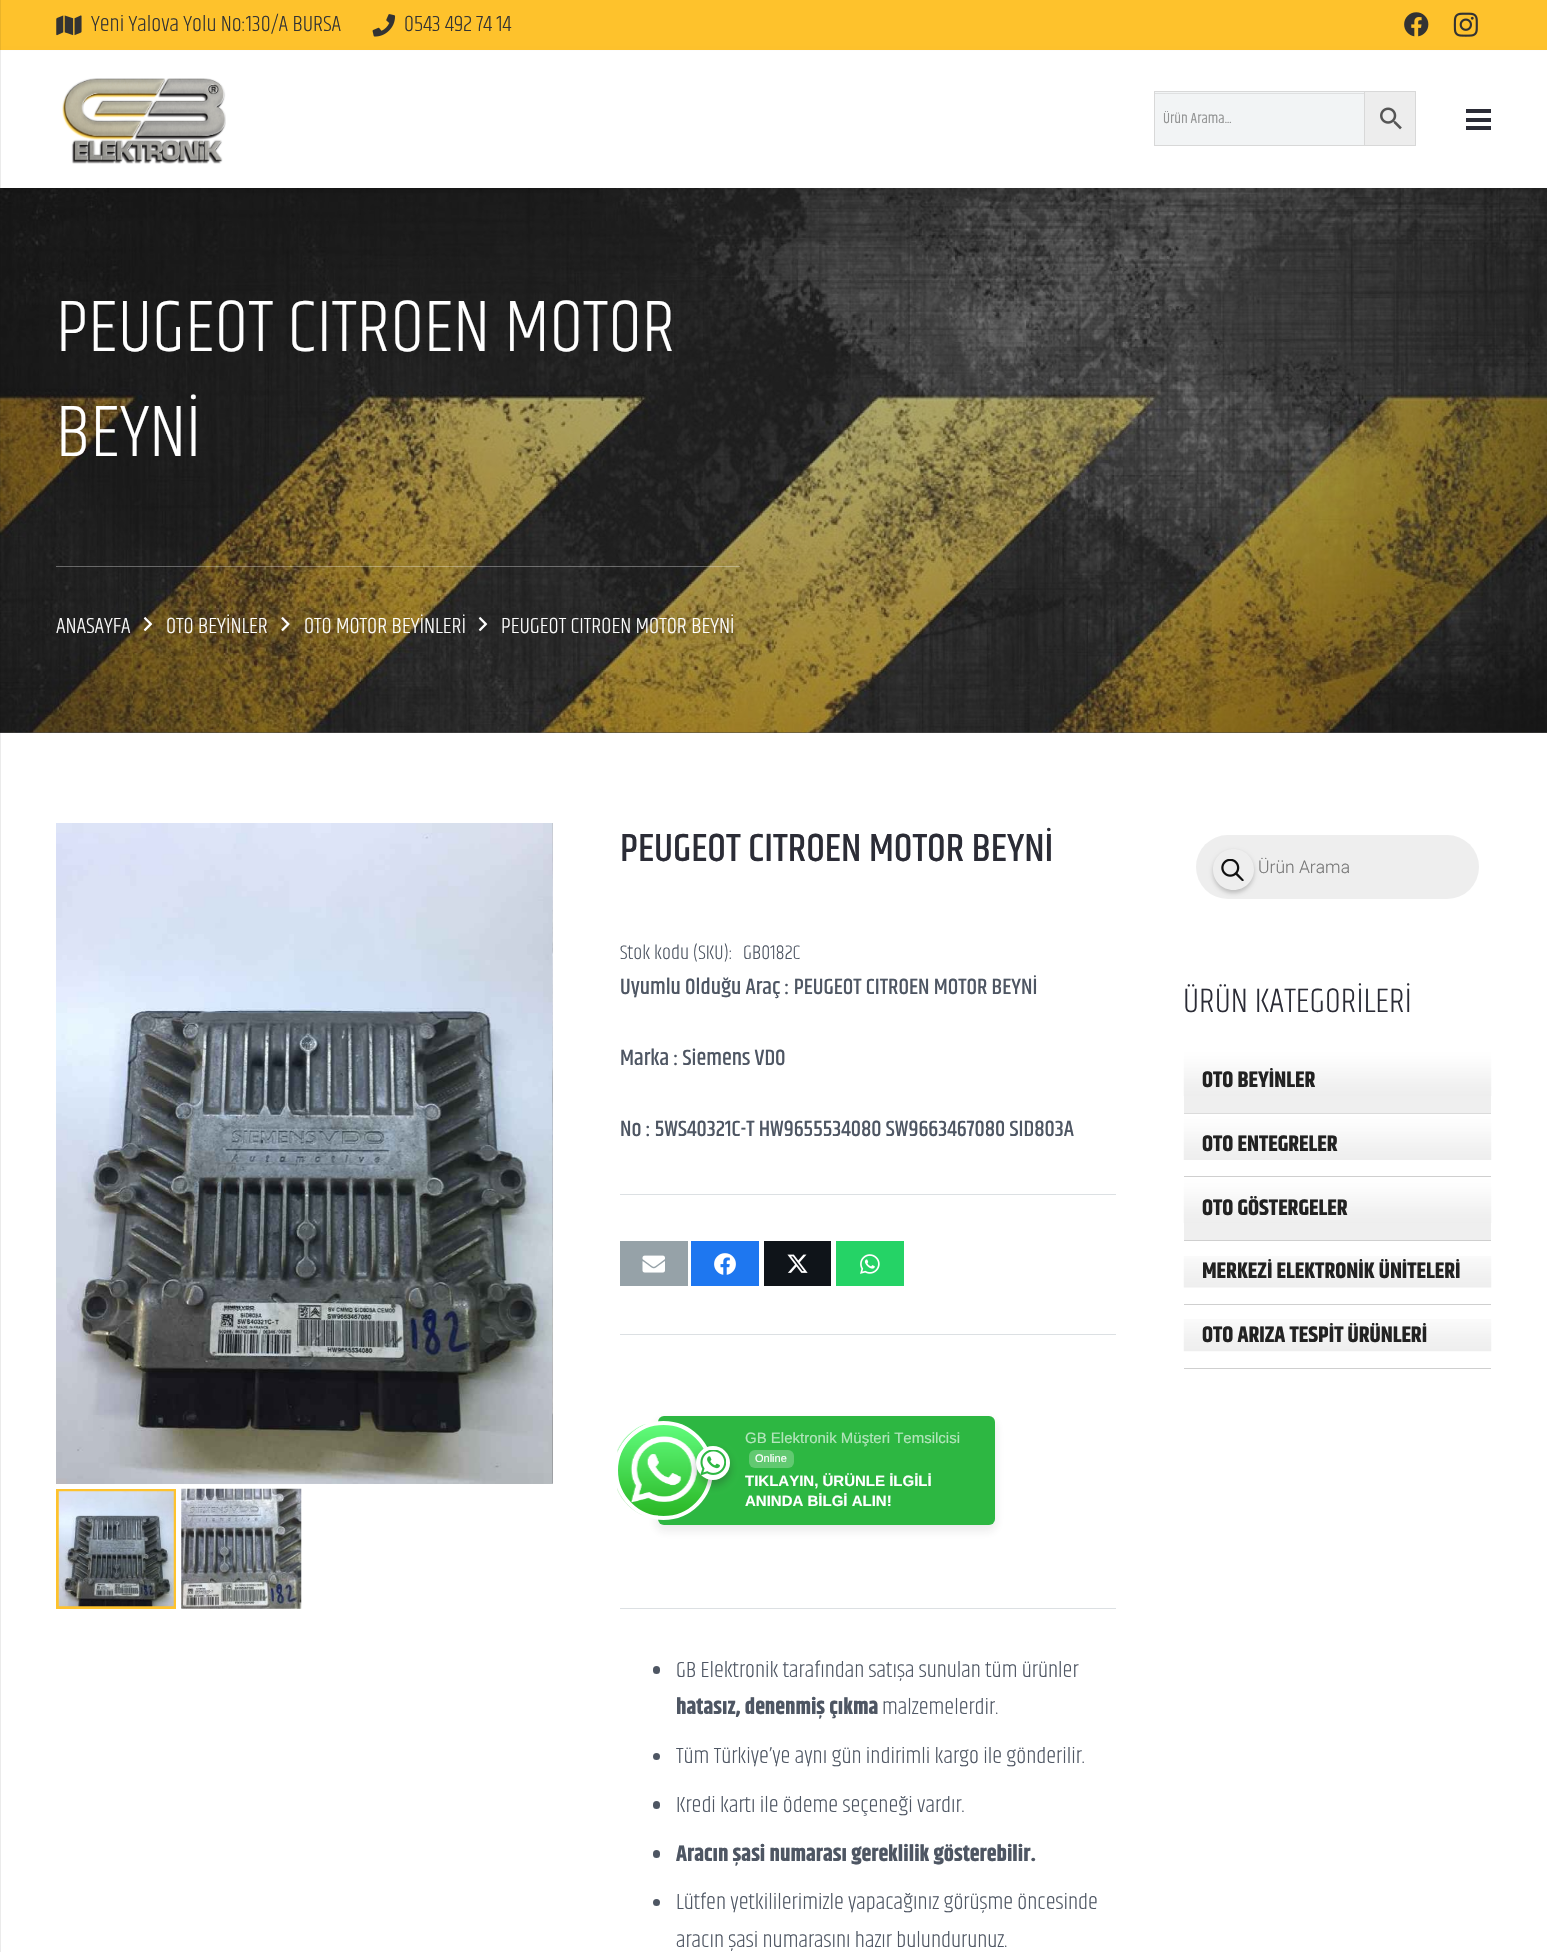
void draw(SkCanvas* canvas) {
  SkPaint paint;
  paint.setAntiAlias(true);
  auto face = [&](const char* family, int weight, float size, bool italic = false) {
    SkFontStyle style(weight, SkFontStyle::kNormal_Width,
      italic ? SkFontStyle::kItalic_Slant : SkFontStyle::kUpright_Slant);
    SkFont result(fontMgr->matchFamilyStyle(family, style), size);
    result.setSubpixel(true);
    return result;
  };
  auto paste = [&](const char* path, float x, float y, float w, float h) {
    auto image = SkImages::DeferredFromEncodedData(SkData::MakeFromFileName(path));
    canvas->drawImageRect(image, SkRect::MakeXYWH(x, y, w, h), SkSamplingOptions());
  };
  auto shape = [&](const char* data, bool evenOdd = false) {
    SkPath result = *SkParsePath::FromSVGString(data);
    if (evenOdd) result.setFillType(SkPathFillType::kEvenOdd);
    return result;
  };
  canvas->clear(0xffffffff);
  paint.setColor(0xfffec22c);
  canvas->drawRect(SkRect::MakeXYWH(0, 0, 1547, 50), paint);
  paste("img/1.png", 56, 15, 26, 21);
  paste("img/2.png", 372, 14, 24, 23);
  paste("img/3.png", 1404, 12, 25, 25);
  paste("img/4.png", 1453, 12, 25, 25);
  paint.setColor(0xff494a4a);
  canvas->drawRect(SkRect::MakeXYWH(0, 732, 1547, 1), paint);
  paste("img/7.png", 0, 188, 1547, 545);
  paint.setColor(0x0d000000);
  paint.setMaskFilter(SkMaskFilter::MakeBlur(kNormal_SkBlurStyle, 0.5f));
  canvas->drawRect(SkRect::MakeXYWH(1, 54, 1545, 135), paint);
  paint.setMaskFilter(nullptr);
  paint.setColor(0x1a000000);
  paint.setMaskFilter(SkMaskFilter::MakeBlur(kNormal_SkBlurStyle, 3));
  canvas->drawRect(SkRect::MakeXYWH(1, 55, 1545, 135), paint);
  paint.setMaskFilter(nullptr);
  paint.setColor(0xffffffff);
  canvas->drawRect(SkRect::MakeXYWH(0, 51, 1547, 137), paint);
  paste("img/5.png", 62, 78, 164, 86);
  paint.setColor(0x14000000);
  canvas->drawPath(shape("M-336 1952V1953H1V0H0V1952Z"), paint);
  {
    const struct { float x, y, w, h; SkColor color; } items[] = {
      {1466, 118, 25, 4, 0xff2b2c36},
      {1466, 109, 25, 4, 0xff2b2c36},
      {1466, 126, 25, 4, 0xff2b2c36},
      {1155, 92, 209, 53, 0xfff2f4f5},
      {1155, 93, 209, 1, 0xffdfe0e1},
    };
    for (auto [x, y, w, h, color] : items) {
      paint.setColor(color);
      canvas->drawRect(SkRect::MakeXYWH(x, y, w, h), paint);
    }
  }
  paint.setColor(0xffededed);
  canvas->drawRect(SkRect::MakeXYWH(1364.5f, 91.5f, 51, 54), paint);
  paint.setStroke(true);
  paint.setStrokeWidth(1);
  paint.setColor(0xffd8d8d8);
  canvas->drawRect(SkRect::MakeXYWH(1364.5f, 91.5f, 51, 54), paint);
  canvas->drawRect(SkRect::MakeXYWH(1154.5f, 91.5f, 210, 54), paint);
  paste("img/6.png", 1380, 107, 22, 23);
  paint.setStroke(false);
  paint.setColor(0x54ffffff);
  canvas->drawRect(SkRect::MakeXYWH(56, 566, 684, 1), paint);
  paste("img/8.png", 143, 617, 10, 15);
  paste("img/9.png", 281, 617, 9, 15);
  paste("img/10.png", 478, 617, 10, 15);
  paste("img/12.png", 552, 823, 1, 661);
  paste("img/11.png", 56, 823, 497, 661);
  paint.setStroke(true);
  paint.setStrokeWidth(3);
  paint.setColor(0xfffec22c);
  canvas->drawRect(SkRect::MakeXYWH(57.5f, 1490.5f, 117, 117), paint);
  paste("img/13.png", 58, 1491, 116, 116);
  paste("img/14.png", 181, 1488, 121, 121);
  paint.setStroke(false);
  paint.setColor(0xffdce0e3);
  canvas->drawRect(SkRect::MakeXYWH(620, 1194, 496, 1), paint);
  paint.setColor(0xff96a2a8);
  canvas->drawRect(SkRect::MakeXYWH(620, 1241, 68, 45), paint);
  paste("img/15.png", 642, 1255, 23, 18);
  paint.setColor(0xff1e77f0);
  canvas->drawRect(SkRect::MakeXYWH(691, 1241, 68, 45), paint);
  paste("img/16.png", 714, 1253, 22, 22);
  paint.setColor(0xff0f1419);
  canvas->drawRect(SkRect::MakeXYWH(764, 1241, 67, 45), paint);
  paste("img/17.png", 787, 1254, 21, 19);
  paint.setColor(0xff25d366);
  canvas->drawRect(SkRect::MakeXYWH(836, 1241, 68, 45), paint);
  paste("img/18.png", 860, 1254, 20, 20);
  paint.setColor(0xffdce0e3);
  canvas->drawRect(SkRect::MakeXYWH(620, 1334, 496, 1), paint);
  paint.setColor(0x17202025);
  paint.setMaskFilter(SkMaskFilter::MakeBlur(kNormal_SkBlurStyle, 5));
  canvas->drawRoundRect(SkRect::MakeXYWH(656, 1420, 340, 111), 8, 8, paint);
  paint.setMaskFilter(nullptr);
  paint.setColor(0xff2db742);
  canvas->drawRoundRect(SkRect::MakeXYWH(658, 1416, 337, 109), 6, 6, paint);
  paste("img/19.png", 617, 1424, 92, 92);
  paint.setStroke(true);
  paint.setStrokeWidth(4);
  paint.setColor(0xffffffff);
  canvas->drawCircle(663.5f, 1470.5f, 47.5f, paint);
  paint.setStroke(false);
  paint.setColor(0x4d272626);
  paint.setMaskFilter(SkMaskFilter::MakeBlur(kNormal_SkBlurStyle, 4));
  canvas->drawRoundRect(SkRect::MakeXYWH(696, 1451, 34, 34), 17, 17, paint);
  paint.setMaskFilter(nullptr);
  paint.setColor(0xffffffff);
  canvas->drawCircle(713, 1463, 17, paint);
  paste("img/20.png", 700, 1450, 26, 26);
  paint.setColor(0xff62c971);
  canvas->drawRoundRect(SkRect::MakeXYWH(749, 1450, 45, 18), 6, 6, paint);
  paint.setColor(0xffdce0e3);
  canvas->drawRect(SkRect::MakeXYWH(620, 1608, 496, 1), paint);
  paint.setColor(0xff4e5663);
  canvas->drawRoundRect(SkRect::MakeXYWH(653, 1666, 7, 8), 3.5f, 3.5f, paint);
  canvas->drawCircle(656.5f, 1756.5f, 3.5f, paint);
  canvas->drawRoundRect(SkRect::MakeXYWH(653, 1801, 7, 8), 3.5f, 3.5f, paint);
  canvas->drawRoundRect(SkRect::MakeXYWH(653, 1850, 7, 8), 3.5f, 3.5f, paint);
  canvas->drawCircle(656.5f, 1902.5f, 3.5f, paint);
  paint.setColor(0xffeeeeee);
  canvas->drawRoundRect(SkRect::MakeXYWH(1196, 835, 283, 64), 32, 32, paint);
  canvas->save();
  canvas->clipPath(shape("M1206 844H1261V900H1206ZM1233.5 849C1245 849 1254 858 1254 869.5C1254 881 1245 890 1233.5 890C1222 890 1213 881 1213 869.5C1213 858 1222 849 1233.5 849Z", true), true);
  paint.setColor(0x33000000);
  paint.setMaskFilter(SkMaskFilter::MakeBlur(kNormal_SkBlurStyle, 2));
  canvas->drawRoundRect(SkRect::MakeXYWH(1213, 851, 41, 42), 20.5f, 20.5f, paint);
  paint.setMaskFilter(nullptr);
  canvas->restore();
  paste("img/21.png", 1221, 859, 23, 22);
  paint.setColor(0xffefefef);
  canvas->drawRect(SkRect::MakeXYWH(1184, 1096, 307, 17), paint);
  paste("img/22.png", 1183, 1050, 309, 46);
  paint.setColor(0xffcfcfcf);
  canvas->drawRect(SkRect::MakeXYWH(1184, 1113, 307, 1), paint);
  paste("img/23.png", 1183, 1113, 309, 47);
  canvas->drawRect(SkRect::MakeXYWH(1184, 1176, 307, 1), paint);
  paint.setColor(0xffefefef);
  canvas->drawRect(SkRect::MakeXYWH(1184, 1223, 307, 17), paint);
  paste("img/24.png", 1183, 1178, 309, 45);
  paint.setColor(0xffcfcfcf);
  canvas->drawRect(SkRect::MakeXYWH(1184, 1240, 307, 1), paint);
  paste("img/25.png", 1183, 1256, 309, 32);
  canvas->drawRect(SkRect::MakeXYWH(1184, 1304, 307, 1), paint);
  paste("img/26.png", 1183, 1319, 309, 33);
  canvas->drawRect(SkRect::MakeXYWH(1184, 1368, 307, 1), paint);
  auto f0 = face("Khand", 300, 22.5f);
  paint.setColor(0xff333333);
  canvas->drawString("Yeni Yalova Yolu No:130/A BURSA", 91, 31, f0, paint);
  canvas->drawString("0543 492 74 14", 404, 31, f0, paint);
  auto f1 = face("Khand", 400, 15);
  paint.setColor(0xff929393);
  canvas->drawString("Ürün Arama...", 1163, 123, f1, paint);
  auto f2 = face("Khand", 300, 75);
  paint.setColor(0xffffffff);
  canvas->drawString("PEUGEOT CITROEN MOTOR", 56, 351, f2, paint);
  canvas->drawString("BEYNİ", 56, 456, f2, paint);
  {
    const struct { const char* s; float x, y; } items[] = {
      {"ANASAYFA", 56, 633},
      {"OTO BEYİNLER", 166, 633},
      {"OTO MOTOR BEYİNLERİ", 304, 633},
      {"PEUGEOT CITROEN MOTOR BEYNİ", 501, 633},
    };
    for (auto [s, x, y] : items) {
      canvas->drawString(s, x, y, f0, paint);
    }
  }
  auto f3 = face("Khand", 500, 40);
  paint.setColor(0xff2b2c36);
  canvas->drawString("PEUGEOT CITROEN MOTOR BEYNİ", 620, 861, f3, paint);
  auto f4 = face("Khand", 300, 20.25f);
  paint.setColor(0xff4e5663);
  canvas->drawString("Stok kodu (SKU):", 620, 959, f4, paint);
  canvas->drawString("GB0182C", 743, 959, f4, paint);
  auto f5 = face("Khand", 500, 22.5f);
  {
    const struct { const char* s; float x, y; } items[] = {
      {"Uyumlu Olduğu Araç : PEUGEOT CITROEN MOTOR BEYNİ", 620, 994},
      {"Marka : Siemens VDO", 620, 1065},
      {"No : 5WS40321C-T HW9655534080 SW9663467080 SID803A", 620, 1136},
    };
    for (auto [s, x, y] : items) {
      canvas->drawString(s, x, y, f5, paint);
    }
  }
  auto f6 = face("Liberation Sans", 400, 15);
  paint.setColor(0xffb3e5bb);
  canvas->drawString("GB Elektronik Müşteri Temsilcisi", 745, 1443, f6, paint);
  auto f7 = face("Liberation Sans", 400, 11);
  paint.setColor(0xffffffff);
  canvas->drawString("Online", 755, 1462, f7, paint);
  auto f8 = face("Liberation Sans", 700, 15);
  canvas->drawString("TIKLAYIN, ÜRÜNLE İLGİLİ", 745, 1486, f8, paint);
  canvas->drawString("ANINDA BİLGİ ALIN!", 745, 1506, f8, paint);
  paint.setColor(0xff4e5663);
  canvas->drawString("GB Elektronik tarafından satışa sunulan tüm ürünler", 676, 1677, f0, paint);
  auto f9 = face("Khand", 700, 22.5f);
  canvas->drawString("hatasız, denenmiş çıkma", 676, 1714, f9, paint);
  {
    const struct { const char* s; float x, y; } items[] = {
      {"malzemelerdir.", 882, 1714},
      {"Tüm Türkiye’ye aynı gün indirimli kargo ile gönderilir.", 676, 1763},
      {"Kredi kartı ile ödeme seçeneği vardır.", 676, 1812},
    };
    for (auto [s, x, y] : items) {
      canvas->drawString(s, x, y, f0, paint);
    }
  }
  canvas->drawString("Aracın şasi numarası gereklilik gösterebilir.", 676, 1861, f9, paint);
  canvas->drawString("Lütfen yetkililerimizle yapacağınız görüşme öncesinde", 676, 1909, f0, paint);
  canvas->drawString("aracın şasi numarasını hazır bulundurunuz.", 676, 1947, f0, paint);
  auto f10 = face("Roboto", 300, 17.5f);
  paint.setColor(0xff777777);
  canvas->drawString("Ürün Arama", 1258, 873, f10, paint);
  auto f11 = face("Khand", 300, 35);
  paint.setColor(0xff2b2c36);
  canvas->drawString("ÜRÜN KATEGORİLERİ", 1183, 1012, f11, paint);
  paint.setColor(0xff222222);
  {
    const struct { const char* s; float x, y; } items[] = {
      {"OTO BEYİNLER", 1202, 1087},
      {"OTO ENTEGRELER", 1202, 1151},
      {"OTO GÖSTERGELER", 1202, 1215},
      {"MERKEZİ ELEKTRONİK ÜNİTELERİ", 1202, 1278},
      {"OTO ARIZA TESPİT ÜRÜNLERİ", 1202, 1342},
    };
    for (auto [s, x, y] : items) {
      canvas->drawString(s, x, y, f9, paint);
    }
  }
}
